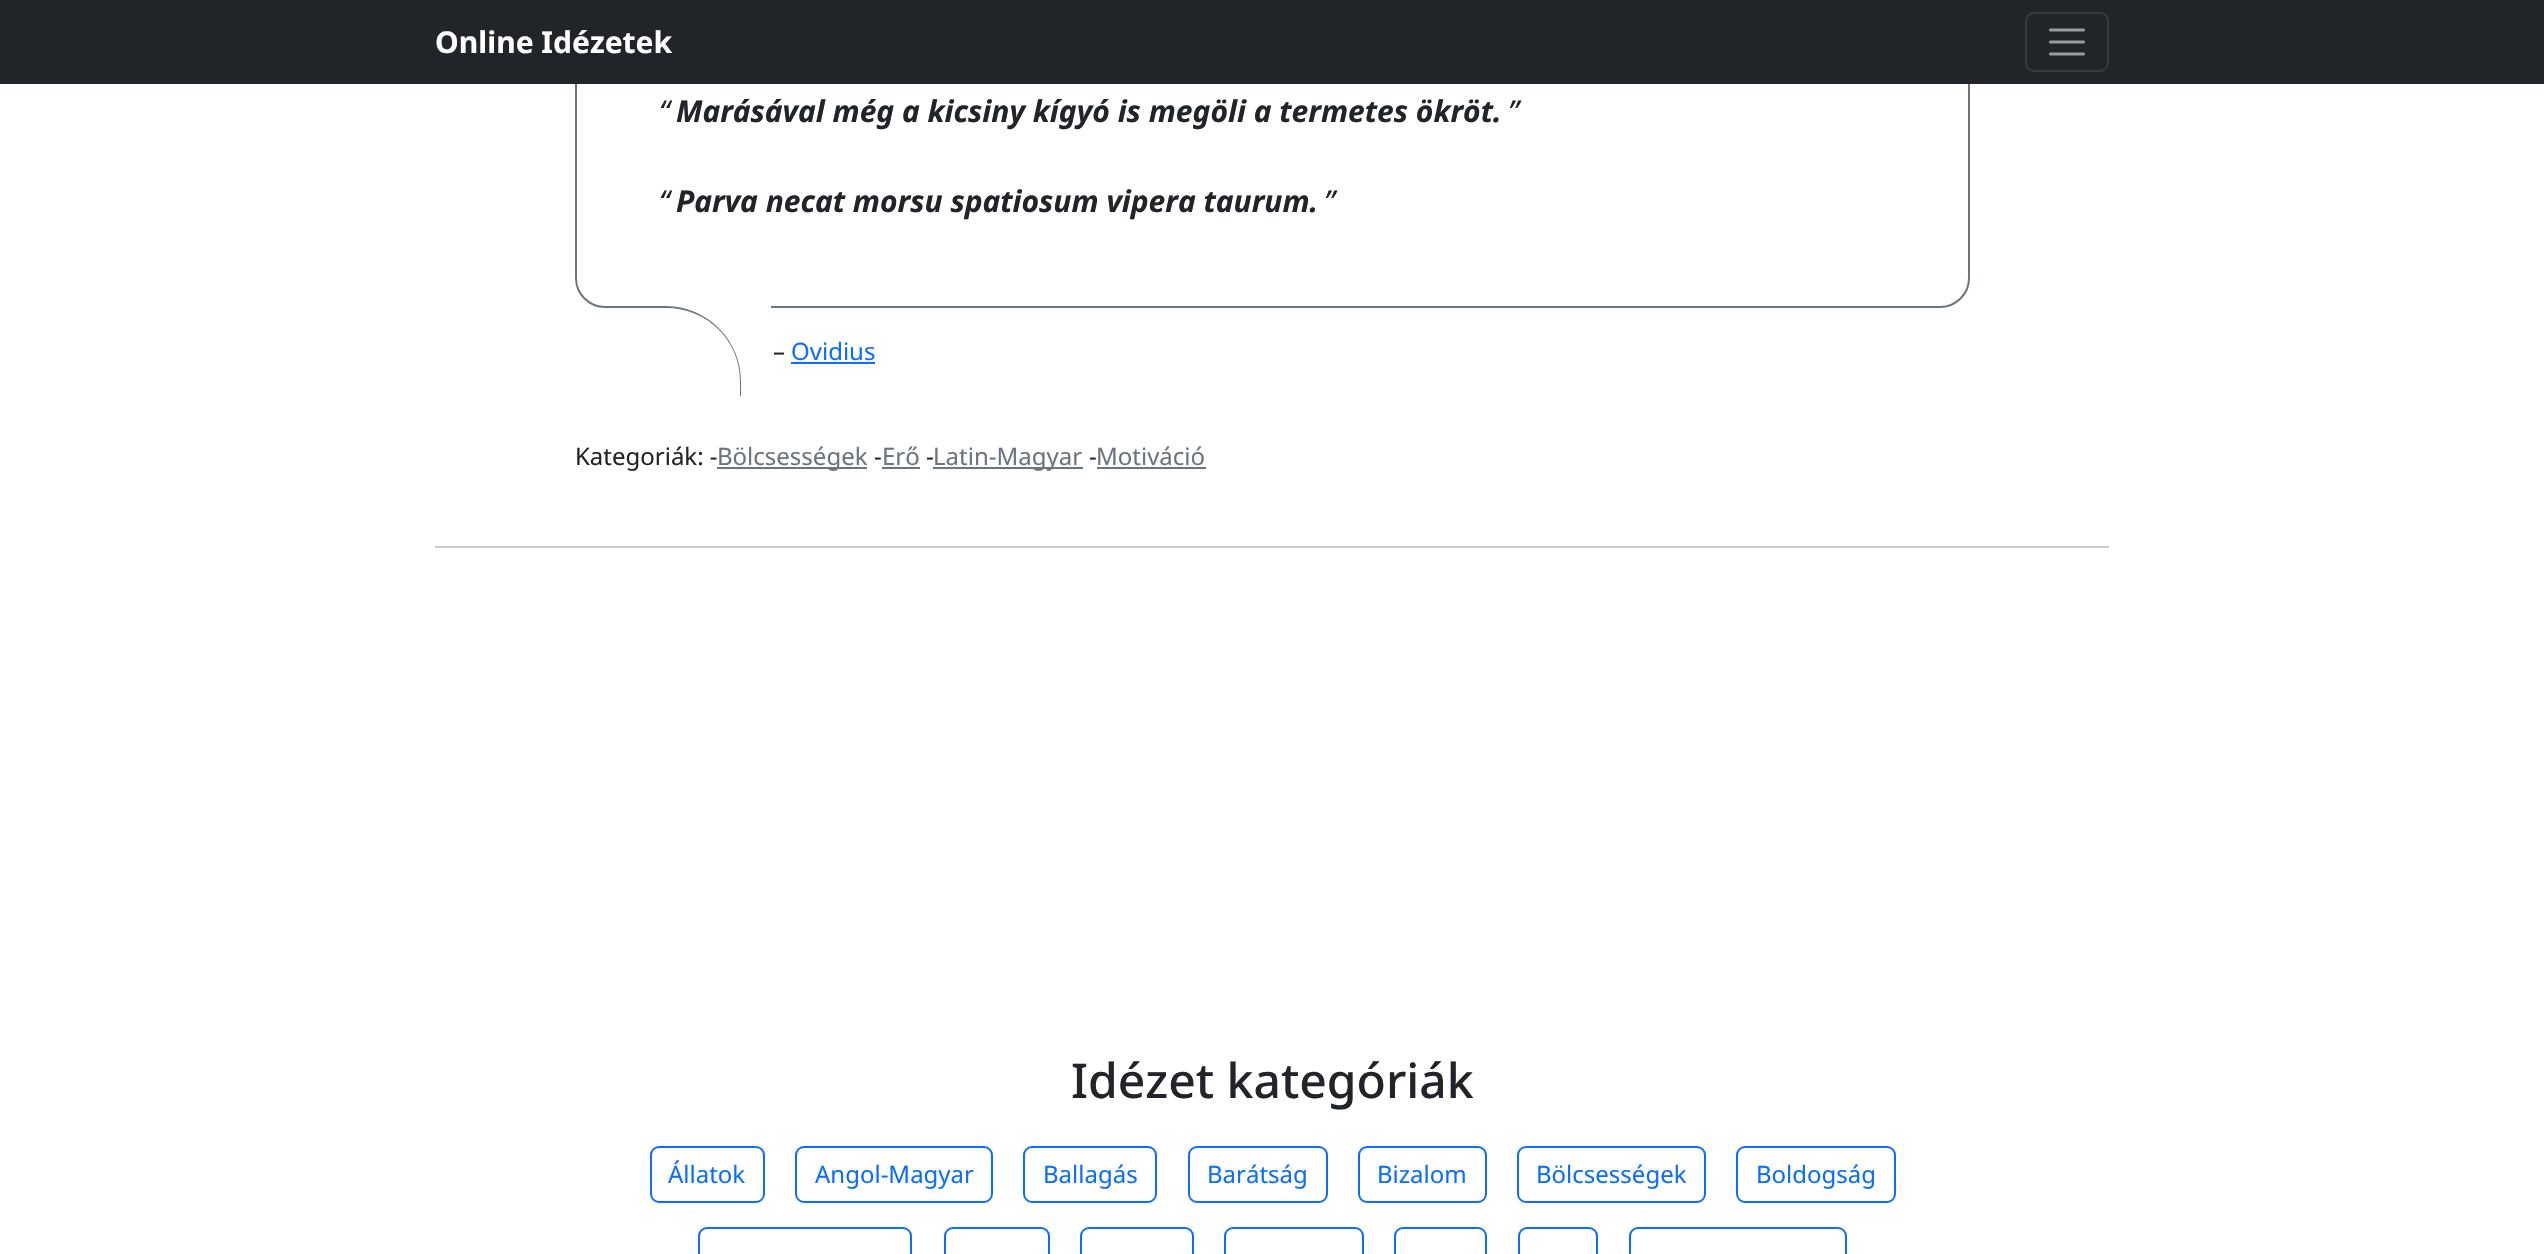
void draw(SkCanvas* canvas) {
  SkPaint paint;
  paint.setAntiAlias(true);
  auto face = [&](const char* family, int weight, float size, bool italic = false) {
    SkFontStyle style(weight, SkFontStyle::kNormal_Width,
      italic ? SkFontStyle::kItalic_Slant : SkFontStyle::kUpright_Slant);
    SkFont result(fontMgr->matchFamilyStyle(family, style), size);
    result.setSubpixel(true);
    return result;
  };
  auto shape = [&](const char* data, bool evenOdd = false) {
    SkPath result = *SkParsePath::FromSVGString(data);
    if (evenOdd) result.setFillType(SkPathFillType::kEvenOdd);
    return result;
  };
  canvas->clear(0xffffffff);
  paint.setStroke(true);
  paint.setStrokeWidth(2);
  paint.setColor(0xff6c757d);
  canvas->drawRoundRect(SkRect::MakeXYWH(576, 6, 1393, 301), 29, 29, paint);
  paint.setStroke(false);
  paint.setColor(0xff212529);
  canvas->drawRect(SkRect::MakeXYWH(0, 0, 2544, 84), paint);
  paint.setStroke(true);
  paint.setColor(0xff373b3e);
  canvas->drawRoundRect(SkRect::MakeXYWH(2026, 13, 82, 58), 8, 8, paint);
  paint.setStrokeWidth(3);
  paint.setStrokeCap(SkPaint::kRound_Cap);
  paint.setColor(0xff9b9d9f);
  canvas->drawPath(shape("M2050.5 30H2083.5M2050.5 42H2083.5M2050.5 54H2083.5"), paint);
  paint.setStroke(false);
  paint.setColor(0xffffffff);
  canvas->drawRect(SkRect::MakeXYWH(651, 306, 120, 2), paint);
  paint.setColor(0xff6c757d);
  canvas->drawPath(shape("M651 306H666C707 306 741 340 741 381V396H651ZM651 308H666C707 308 740 340 740 381V396H651Z", true), paint);
  {
    const struct { float x, y, w, h; SkColor color; } items[] = {
      {791, 362, 84, 2, 0xff0d6efd},
      {717, 467, 150, 2, 0xff6c757d},
      {882, 467, 38, 2, 0xff6c757d},
      {933, 467, 150, 2, 0xff6c757d},
      {1097, 467, 109, 2, 0xff6c757d},
      {435, 546, 1674, 2, 0xffc8c9ca},
    };
    for (auto [x, y, w, h, color] : items) {
      paint.setColor(color);
      canvas->drawRect(SkRect::MakeXYWH(x, y, w, h), paint);
    }
  }
  paint.setStroke(true);
  paint.setStrokeWidth(2);
  paint.setStrokeCap(SkPaint::kButt_Cap);
  paint.setColor(0xff0d6efd);
  canvas->drawRoundRect(SkRect::MakeXYWH(651, 1147, 113, 55), 8, 8, paint);
  canvas->drawRoundRect(SkRect::MakeXYWH(796, 1147, 196, 55), 8, 8, paint);
  canvas->drawRoundRect(SkRect::MakeXYWH(1024, 1147, 132, 55), 8, 8, paint);
  canvas->drawRoundRect(SkRect::MakeXYWH(1189, 1147, 138, 55), 8, 8, paint);
  canvas->drawRoundRect(SkRect::MakeXYWH(1359, 1147, 127, 55), 8, 8, paint);
  canvas->drawRoundRect(SkRect::MakeXYWH(1518, 1147, 187, 55), 8, 8, paint);
  canvas->drawRoundRect(SkRect::MakeXYWH(1737, 1147, 158, 55), 8, 8, paint);
  canvas->drawRoundRect(SkRect::MakeXYWH(699, 1228, 212, 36), 8, 8, paint);
  canvas->drawRoundRect(SkRect::MakeXYWH(945, 1228, 104, 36), 8, 8, paint);
  canvas->drawRoundRect(SkRect::MakeXYWH(1081, 1228, 112, 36), 8, 8, paint);
  canvas->drawRoundRect(SkRect::MakeXYWH(1225, 1228, 138, 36), 8, 8, paint);
  canvas->drawRoundRect(SkRect::MakeXYWH(1395, 1228, 91, 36), 8, 8, paint);
  canvas->drawRoundRect(SkRect::MakeXYWH(1519, 1228, 78, 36), 8, 8, paint);
  canvas->drawRoundRect(SkRect::MakeXYWH(1630, 1228, 216, 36), 8, 8, paint);
  auto f0 = face("Noto Sans", 700, 30);
  paint.setStroke(false);
  paint.setColor(0xffffffff);
  canvas->drawString("Online Idézetek", 435, 53, f0, paint);
  auto f1 = face("Noto Sans", 400, 30, true);
  paint.setColor(0xff212529);
  canvas->drawString("“", 659, 122, f1, paint);
  auto f2 = face("Noto Sans", 700, 30, true);
  canvas->drawString("Marásával még a kicsiny kígyó is megöli a termetes ökröt.", 676, 122, f2, paint);
  canvas->drawString("”", 1508, 122, f1, paint);
  canvas->drawString("“", 659, 212, f1, paint);
  canvas->drawString("Parva necat morsu spatiosum vipera taurum.", 676, 212, f2, paint);
  canvas->drawString("”", 1324, 212, f1, paint);
  auto f3 = face("Noto Sans", 400, 24);
  canvas->drawString("–", 773, 360, f3, paint);
  paint.setColor(0xff0d6efd);
  canvas->drawString("Ovidius", 791, 360, f3, paint);
  paint.setColor(0xff212529);
  canvas->drawString("Kategoriák: ‐", 575, 465, f3, paint);
  paint.setColor(0xff6c757d);
  canvas->drawString("Bölcsességek", 717, 465, f3, paint);
  paint.setColor(0xff212529);
  canvas->drawString("‐", 874, 465, f3, paint);
  paint.setColor(0xff6c757d);
  canvas->drawString("Erő", 882, 465, f3, paint);
  paint.setColor(0xff212529);
  canvas->drawString("‐", 926, 465, f3, paint);
  paint.setColor(0xff6c757d);
  canvas->drawString("Latin-Magyar", 933, 465, f3, paint);
  paint.setColor(0xff212529);
  canvas->drawString("‐", 1089, 465, f3, paint);
  paint.setColor(0xff6c757d);
  canvas->drawString("Motiváció", 1096, 465, f3, paint);
  auto f4 = face("Noto Sans", 500, 48);
  paint.setColor(0xff212529);
  canvas->drawString("Idézet kategóriák", 1071, 1098, f4, paint);
  paint.setColor(0xff0d6efd);
  {
    const struct { const char* s; float x, y; } items[] = {
      {"Állatok", 668, 1183},
      {"Angol-Magyar", 815, 1183},
      {"Ballagás", 1043, 1183},
      {"Barátság", 1207, 1183},
      {"Bizalom", 1377, 1183},
      {"Bölcsességek", 1536, 1183},
      {"Boldogság", 1756, 1183},
    };
    for (auto [s, x, y] : items) {
      canvas->drawString(s, x, y, f3, paint);
    }
  }
}
